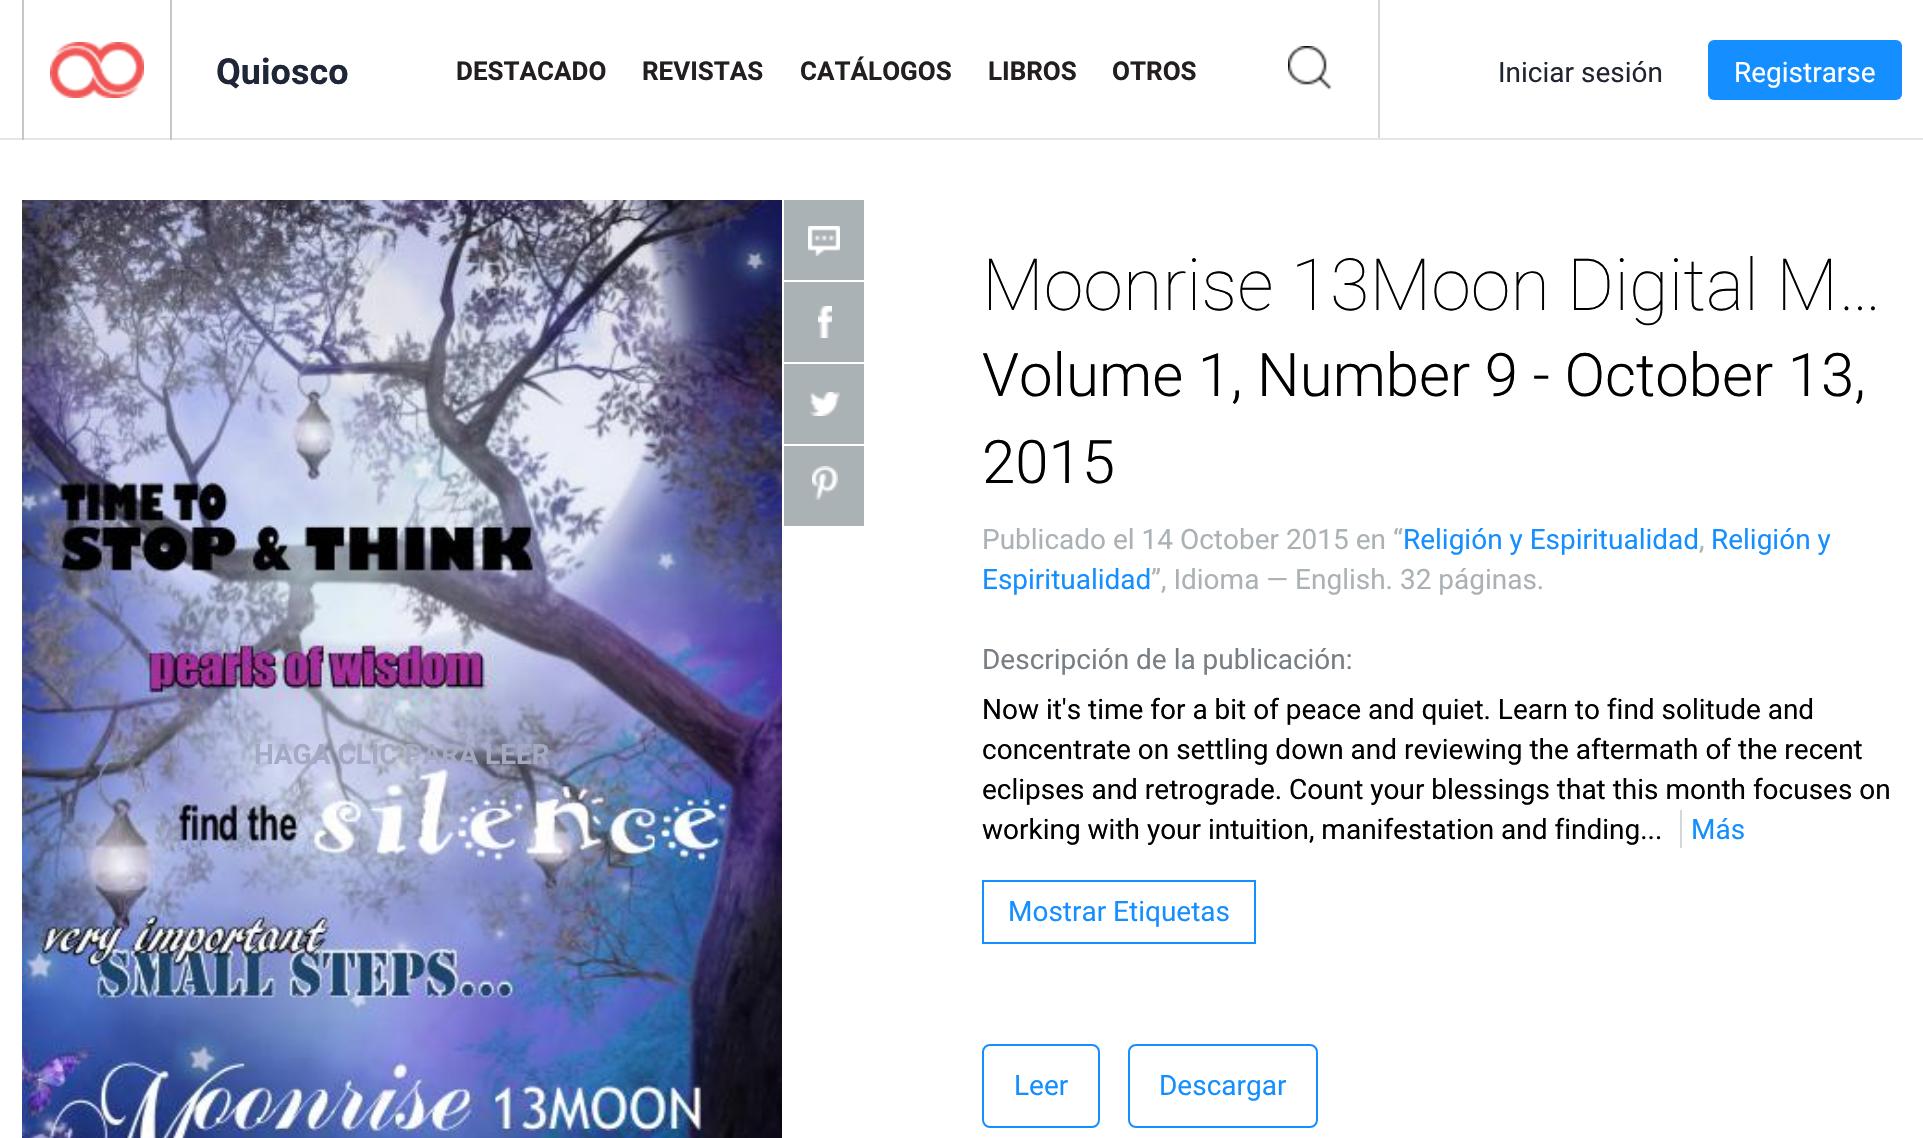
void draw(SkCanvas* canvas) {
  SkPaint paint;
  paint.setAntiAlias(true);
  auto face = [&](const char* family, int weight, float size, bool italic = false) {
    SkFontStyle style(weight, SkFontStyle::kNormal_Width,
      italic ? SkFontStyle::kItalic_Slant : SkFontStyle::kUpright_Slant);
    SkFont result(fontMgr->matchFamilyStyle(family, style), size);
    result.setSubpixel(true);
    return result;
  };
  auto paste = [&](const char* path, float x, float y, float w, float h) {
    auto image = SkImages::DeferredFromEncodedData(SkData::MakeFromFileName(path));
    canvas->drawImageRect(image, SkRect::MakeXYWH(x, y, w, h), SkSamplingOptions());
  };
  canvas->clear(0xffffffff);
  {
    const struct { float x, y, w, h; SkColor color; } items[] = {
      {0, 138, 1923, 2, 0xffe5e5e5},
      {170, 0, 2, 140, 0xffc6c6c6},
      {22, 0, 2, 140, 0xffc6c6c6},
    };
    for (auto [x, y, w, h, color] : items) {
      paint.setColor(color);
      canvas->drawRect(SkRect::MakeXYWH(x, y, w, h), paint);
    }
  }
  paste("img/1.png", 50, 42, 94, 56);
  paint.setColor(0xffd2d7d9);
  canvas->drawRect(SkRect::MakeXYWH(1378, 0, 2, 138), paint);
  paste("img/2.png", 1288, 46, 44, 44);
  paint.setColor(0xff158fff);
  canvas->drawRoundRect(SkRect::MakeXYWH(1708, 40, 194, 60), 6, 6, paint);
  paint.setColor(0xffabb2b6);
  canvas->drawRect(SkRect::MakeXYWH(784, 200, 80, 80), paint);
  paste("img/3.png", 808, 226, 32, 30);
  canvas->drawRect(SkRect::MakeXYWH(784, 282, 80, 80), paint);
  paste("img/4.png", 818, 306, 14, 32);
  canvas->drawRect(SkRect::MakeXYWH(784, 364, 80, 80), paint);
  paste("img/5.png", 810, 392, 30, 24);
  canvas->drawRect(SkRect::MakeXYWH(784, 446, 80, 80), paint);
  paste("img/6.png", 812, 466, 26, 34);
  paste("img/7.png", 22, 200, 760, 938);
  paint.setColor(0xffd2d7d9);
  canvas->drawRect(SkRect::MakeXYWH(1680, 810, 2, 38), paint);
  paint.setStroke(true);
  paint.setStrokeWidth(2);
  paint.setColor(0xff158fff);
  canvas->drawRect(SkRect::MakeXYWH(983, 881, 272, 62), paint);
  canvas->drawRoundRect(SkRect::MakeXYWH(983, 1045, 116, 82), 7, 7, paint);
  canvas->drawRoundRect(SkRect::MakeXYWH(1129, 1045, 188, 82), 7, 7, paint);
  auto f0 = face("Roboto", 700, 36);
  paint.setStroke(false);
  paint.setColor(0xff1e2638);
  canvas->drawString("Quiosco", 216, 84, f0, paint);
  auto f1 = face("Roboto", 700, 26);
  paint.setColor(0xff231f20);
  {
    const struct { const char* s; float x, y; } items[] = {
      {"DESTACADO", 456, 80},
      {"REVISTAS", 642, 80},
      {"CATÁLOGOS", 800, 80},
      {"LIBROS", 988, 80},
      {"OTROS", 1112, 80},
    };
    for (auto [s, x, y] : items) {
      canvas->drawString(s, x, y, f1, paint);
    }
  }
  auto f2 = face("Roboto", 400, 28);
  paint.setColor(0xff202532);
  canvas->drawString("Iniciar sesión", 1498, 82, f2, paint);
  paint.setColor(0xffffffff);
  canvas->drawString("Registrarse", 1734, 82, f2, paint);
  auto f3 = face("Roboto", 700, 28);
  paint.setColor(0xffa5aac3);
  canvas->drawString("HAGA CLIC PARA LEER", 254, 764, f3, paint);
  auto f4 = face("Roboto", 100, 72);
  paint.setColor(0xff000000);
  canvas->drawString("Moonrise 13Moon Digital M…", 982, 310, f4, paint);
  auto f5 = face("Roboto", 300, 60);
  canvas->drawString("Volume 1, Number 9 - October 13,", 982, 396, f5, paint);
  canvas->drawString("2015", 982, 483, f5, paint);
  paint.setColor(0xffabb2b6);
  canvas->drawString("Publicado el 14 October 2015 en “", 982, 549, f2, paint);
  paint.setColor(0xff158fff);
  canvas->drawString("Religión y Espiritualidad", 1403, 549, f2, paint);
  paint.setColor(0xffabb2b6);
  canvas->drawString(",", 1699, 549, f2, paint);
  paint.setColor(0xff158fff);
  canvas->drawString("Religión y", 1711, 549, f2, paint);
  canvas->drawString("Espiritualidad", 982, 589, f2, paint);
  paint.setColor(0xffabb2b6);
  canvas->drawString("”, Idioma — English. 32 páginas.", 1151, 589, f2, paint);
  paint.setColor(0xff777f86);
  canvas->drawString("Descripción de la publicación:", 982, 669, f2, paint);
  paint.setColor(0xff000000);
  {
    const struct { const char* s; float x, y; } items[] = {
      {"Now it's time for a bit of peace and quiet. Learn to find solitude and", 982, 719},
      {"concentrate on settling down and reviewing the aftermath of the recent", 982, 759},
      {"eclipses and retrograde. Count your blessings that this month focuses on", 982, 799},
      {"working with your intuition, manifestation and finding...", 982, 839},
    };
    for (auto [s, x, y] : items) {
      canvas->drawString(s, x, y, f2, paint);
    }
  }
  paint.setColor(0xff158fff);
  {
    const struct { const char* s; float x, y; } items[] = {
      {"Más", 1691, 839},
      {"Mostrar Etiquetas", 1008, 921},
      {"Leer", 1014, 1095},
      {"Descargar", 1159, 1095},
    };
    for (auto [s, x, y] : items) {
      canvas->drawString(s, x, y, f2, paint);
    }
  }
}
